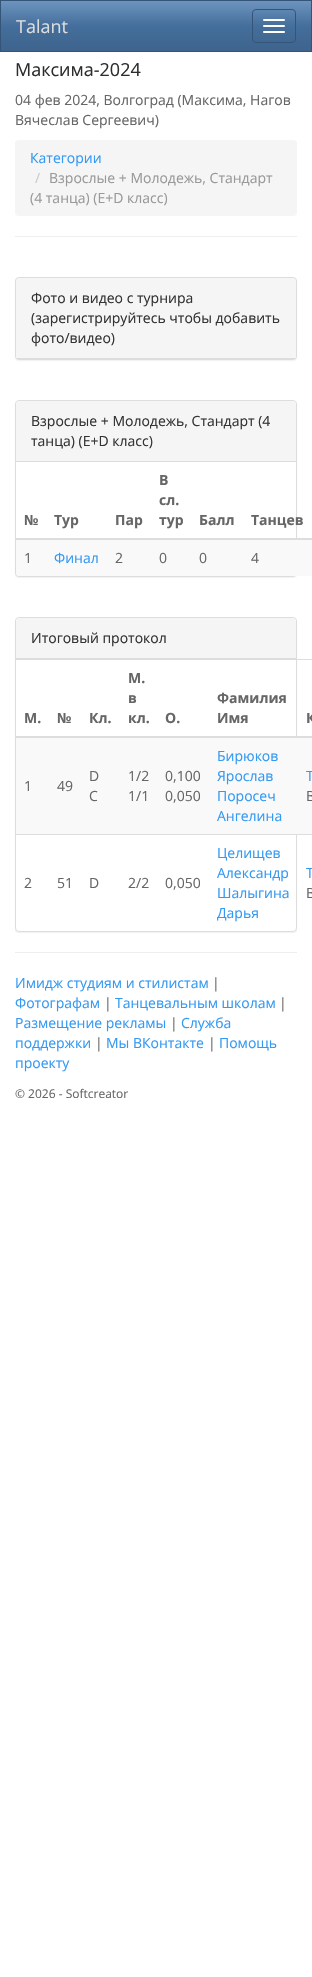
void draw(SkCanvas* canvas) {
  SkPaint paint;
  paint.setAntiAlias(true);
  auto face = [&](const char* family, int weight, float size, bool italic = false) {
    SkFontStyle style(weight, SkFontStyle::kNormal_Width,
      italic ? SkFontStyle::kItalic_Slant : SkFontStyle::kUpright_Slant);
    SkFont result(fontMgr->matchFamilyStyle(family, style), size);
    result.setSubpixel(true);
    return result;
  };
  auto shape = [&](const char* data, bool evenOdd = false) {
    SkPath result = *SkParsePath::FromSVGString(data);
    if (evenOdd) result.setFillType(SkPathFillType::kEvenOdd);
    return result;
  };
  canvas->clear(0xffffffff);
  {
    const SkColor colors[] = {0xff6d94bf, 0xff446e9b, 0xff3e648d};
    const float stops[] = {0, 0.5f, 1};
    const SkPoint ends[] = {{156, 1}, {156, 51}};
    paint.setShader(SkGradientShader::MakeLinear(ends, colors, stops, 3, SkTileMode::kClamp));
    paint.setAlpha(255);
  }
  canvas->drawRect(SkRect::MakeXYWH(1, 1, 310, 50), paint);
  paint.setStroke(true);
  paint.setStrokeWidth(1);
  paint.setShader(nullptr);
  paint.setColor(0xff345578);
  canvas->drawRect(SkRect::MakeXYWH(0.5f, 0.5f, 311, 51), paint);
  canvas->drawRoundRect(SkRect::MakeXYWH(252.5f, 9.5f, 43, 33), 3.5f, 3.5f, paint);
  paint.setStroke(false);
  paint.setColor(0xffffffff);
  canvas->drawRoundRect(SkRect::MakeXYWH(263, 19, 22, 2), 1, 1, paint);
  canvas->drawRoundRect(SkRect::MakeXYWH(263, 25, 22, 2), 1, 1, paint);
  canvas->drawRoundRect(SkRect::MakeXYWH(263, 31, 22, 2), 1, 1, paint);
  paint.setColor(0xfff5f5f5);
  canvas->drawRoundRect(SkRect::MakeXYWH(15, 140, 282, 76), 4, 4, paint);
  paint.setColor(0xffeeeeee);
  canvas->drawRect(SkRect::MakeXYWH(15, 236, 282, 1), paint);
  paint.setColor(0x0d000000);
  paint.setMaskFilter(SkMaskFilter::MakeBlur(kNormal_SkBlurStyle, 0.5f));
  canvas->drawRoundRect(SkRect::MakeXYWH(15, 278, 282, 83), 4, 4, paint);
  paint.setMaskFilter(nullptr);
  paint.setStroke(true);
  paint.setColor(0xffdddddd);
  canvas->drawRoundRect(SkRect::MakeXYWH(15.5f, 277.5f, 281, 82), 3.5f, 3.5f, paint);
  paint.setStroke(false);
  paint.setColor(0xfff5f5f5);
  canvas->drawPath(shape("M19 278H293C294.5 278 296 279.5 296 281V359H16V281C16 279.5 17.5 278 19 278Z"), paint);
  paint.setColor(0xffdddddd);
  canvas->drawRect(SkRect::MakeXYWH(16, 358, 280, 1), paint);
  paint.setColor(0x0d000000);
  paint.setMaskFilter(SkMaskFilter::MakeBlur(kNormal_SkBlurStyle, 0.5f));
  canvas->drawRoundRect(SkRect::MakeXYWH(15, 401, 282, 177), 4, 4, paint);
  paint.setMaskFilter(nullptr);
  paint.setColor(0xffffffff);
  canvas->drawRoundRect(SkRect::MakeXYWH(15.5f, 400.5f, 281, 176), 3.5f, 3.5f, paint);
  paint.setStroke(true);
  paint.setColor(0xffdddddd);
  canvas->drawRoundRect(SkRect::MakeXYWH(15.5f, 400.5f, 281, 176), 3.5f, 3.5f, paint);
  paint.setStroke(false);
  paint.setColor(0xfff5f5f5);
  canvas->drawPath(shape("M19 401H293C294.5 401 296 402.5 296 404V462H16V404C16 402.5 17.5 401 19 401Z"), paint);
  paint.setColor(0xffdddddd);
  canvas->drawRect(SkRect::MakeXYWH(16, 461, 280, 1), paint);
  paint.setColor(0xfff9f9f9);
  canvas->drawPath(shape("M16 539H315V573C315 574.5 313.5 576 312 576H19C17.5 576 16 574.5 16 573Z"), paint);
  paint.setColor(0xffdddddd);
  canvas->drawRect(SkRect::MakeXYWH(15, 538, 297, 2), paint);
  paint.setColor(0x0d000000);
  paint.setMaskFilter(SkMaskFilter::MakeBlur(kNormal_SkBlurStyle, 0.5f));
  canvas->drawRoundRect(SkRect::MakeXYWH(15, 618, 282, 315), 4, 4, paint);
  paint.setMaskFilter(nullptr);
  paint.setColor(0xffffffff);
  canvas->drawRoundRect(SkRect::MakeXYWH(15.5f, 617.5f, 281, 314), 3.5f, 3.5f, paint);
  paint.setStroke(true);
  paint.setColor(0xffdddddd);
  canvas->drawRoundRect(SkRect::MakeXYWH(15.5f, 617.5f, 281, 314), 3.5f, 3.5f, paint);
  paint.setStroke(false);
  paint.setColor(0xfff5f5f5);
  canvas->drawPath(shape("M19 618H293C294.5 618 296 619.5 296 621V659H16V621C16 619.5 17.5 618 19 618Z"), paint);
  {
    const struct { float x, y, w, h; SkColor color; } items[] = {
      {16, 658, 280, 1, 0xffdddddd},
      {16, 659, 296, 1, 0xffdddddd},
      {15, 736, 297, 2, 0xffdddddd},
      {16, 738, 296, 96, 0xfff9f9f9},
      {16, 834, 296, 1, 0xffdddddd},
      {15, 952, 282, 1, 0xffeeeeee},
    };
    for (auto [x, y, w, h, color] : items) {
      paint.setColor(color);
      canvas->drawRect(SkRect::MakeXYWH(x, y, w, h), paint);
    }
  }
  auto f0 = face("Open Sans", 400, 18);
  paint.setColor(0xffdddddd);
  canvas->drawString("Talant", 16, 33, f0, paint);
  paint.setColor(0xff2d2d2d);
  canvas->drawString("Максима-2024", 15, 76, f0, paint);
  auto f1 = face("Open Sans", 400, 14);
  paint.setColor(0xff666666);
  canvas->drawString("04 фев 2024, Волгоград (Максима, Нагов", 15, 105, f1, paint);
  canvas->drawString("Вячеслав Сергеевич)", 15, 125, f1, paint);
  paint.setColor(0xff3399f3);
  canvas->drawString("Категории", 30, 163, f1, paint);
  paint.setColor(0xffcccccc);
  canvas->drawString("/", 35, 183, f1, paint);
  paint.setColor(0xff999999);
  canvas->drawString("Взрослые + Молодежь, Стандарт", 49, 183, f1, paint);
  canvas->drawString("(4 танца) (E+D класс)", 30, 203, f1, paint);
  paint.setColor(0xff333333);
  {
    const struct { const char* s; float x, y; } items[] = {
      {"Фото и видео с турнира", 31, 303},
      {"(зарегистрируйтесь чтобы добавить", 31, 323},
      {"фото/видео)", 31, 343},
      {"Взрослые + Молодежь, Стандарт (4", 31, 426},
      {"танца) (E+D класс)", 31, 446},
    };
    for (auto [s, x, y] : items) {
      canvas->drawString(s, x, y, f1, paint);
    }
  }
  auto f2 = face("Open Sans", 700, 14);
  paint.setColor(0xff666666);
  {
    const struct { const char* s; float x, y; } items[] = {
      {"№", 24, 525},
      {"Тур", 54, 525},
      {"Пар", 115, 525},
      {"В", 159, 485},
      {"сл.", 159, 505},
      {"тур", 159, 525},
      {"Балл", 199, 525},
      {"Танцев", 251, 525},
    };
    for (auto [s, x, y] : items) {
      canvas->drawString(s, x, y, f2, paint);
    }
  }
  canvas->drawString("1", 24, 563, f1, paint);
  paint.setColor(0xff3399f3);
  canvas->drawString("Финал", 54, 563, f1, paint);
  paint.setColor(0xff666666);
  {
    const struct { const char* s; float x, y; } items[] = {
      {"2", 115, 563},
      {"0", 159, 563},
      {"0", 199, 563},
      {"4", 251, 563},
    };
    for (auto [s, x, y] : items) {
      canvas->drawString(s, x, y, f1, paint);
    }
  }
  paint.setColor(0xff333333);
  canvas->drawString("Итоговый протокол", 31, 643, f1, paint);
  paint.setColor(0xff666666);
  {
    const struct { const char* s; float x, y; } items[] = {
      {"М.", 24, 723},
      {"№", 57, 723},
      {"Кл.", 89, 723},
      {"М.", 128, 683},
      {"в", 128, 703},
      {"кл.", 128, 723},
      {"О.", 165, 723},
      {"Фамилия", 217, 703},
      {"Имя", 217, 723},
      {"К", 306, 723},
    };
    for (auto [s, x, y] : items) {
      canvas->drawString(s, x, y, f2, paint);
    }
  }
  {
    const struct { const char* s; float x, y; } items[] = {
      {"1", 24, 791},
      {"49", 57, 791},
      {"D", 89, 781},
      {"C", 89, 801},
      {"1/2", 128, 781},
      {"1/1", 128, 801},
      {"0,100", 165, 781},
      {"0,050", 165, 801},
    };
    for (auto [s, x, y] : items) {
      canvas->drawString(s, x, y, f1, paint);
    }
  }
  paint.setColor(0xff3399f3);
  {
    const struct { const char* s; float x, y; } items[] = {
      {"Бирюков", 217, 761},
      {"Ярослав", 217, 781},
      {"Поросеч", 217, 801},
      {"Ангелина", 217, 821},
      {"T", 306, 781},
    };
    for (auto [s, x, y] : items) {
      canvas->drawString(s, x, y, f1, paint);
    }
  }
  paint.setColor(0xff666666);
  {
    const struct { const char* s; float x, y; } items[] = {
      {"В", 306, 801},
      {"2", 24, 888},
      {"51", 57, 888},
      {"D", 89, 888},
      {"2/2", 128, 888},
      {"0,050", 165, 888},
    };
    for (auto [s, x, y] : items) {
      canvas->drawString(s, x, y, f1, paint);
    }
  }
  paint.setColor(0xff3399f3);
  {
    const struct { const char* s; float x, y; } items[] = {
      {"Целищев", 217, 858},
      {"Александр", 217, 878},
      {"Шалыгина", 217, 898},
      {"Дарья", 217, 918},
      {"T", 306, 878},
    };
    for (auto [s, x, y] : items) {
      canvas->drawString(s, x, y, f1, paint);
    }
  }
  paint.setColor(0xff666666);
  canvas->drawString("В", 306, 898, f1, paint);
  paint.setColor(0xff3399f3);
  canvas->drawString("Имидж студиям и стилистам", 15, 988, f1, paint);
  paint.setColor(0xff666666);
  canvas->drawString("|", 212, 988, f1, paint);
  paint.setColor(0xff3399f3);
  canvas->drawString("Фотографам", 15, 1008, f1, paint);
  paint.setColor(0xff666666);
  canvas->drawString("|", 104, 1008, f1, paint);
  paint.setColor(0xff3399f3);
  canvas->drawString("Танцевальным школам", 115, 1008, f1, paint);
  paint.setColor(0xff666666);
  canvas->drawString("|", 279, 1008, f1, paint);
  paint.setColor(0xff3399f3);
  canvas->drawString("Размещение рекламы", 15, 1028, f1, paint);
  paint.setColor(0xff666666);
  canvas->drawString("|", 170, 1028, f1, paint);
  paint.setColor(0xff3399f3);
  canvas->drawString("Служба", 181, 1028, f1, paint);
  canvas->drawString("поддержки", 15, 1048, f1, paint);
  paint.setColor(0xff666666);
  canvas->drawString("|", 95, 1048, f1, paint);
  paint.setColor(0xff3399f3);
  canvas->drawString("Мы ВКонтакте", 106, 1048, f1, paint);
  paint.setColor(0xff666666);
  canvas->drawString("|", 208, 1048, f1, paint);
  paint.setColor(0xff3399f3);
  canvas->drawString("Помощь", 219, 1048, f1, paint);
  canvas->drawString("проекту", 15, 1068, f1, paint);
  auto f3 = face("Open Sans", 400, 12);
  paint.setColor(0xff666666);
  canvas->drawString("© 2026 - Softcreator", 15, 1098, f3, paint);
}
